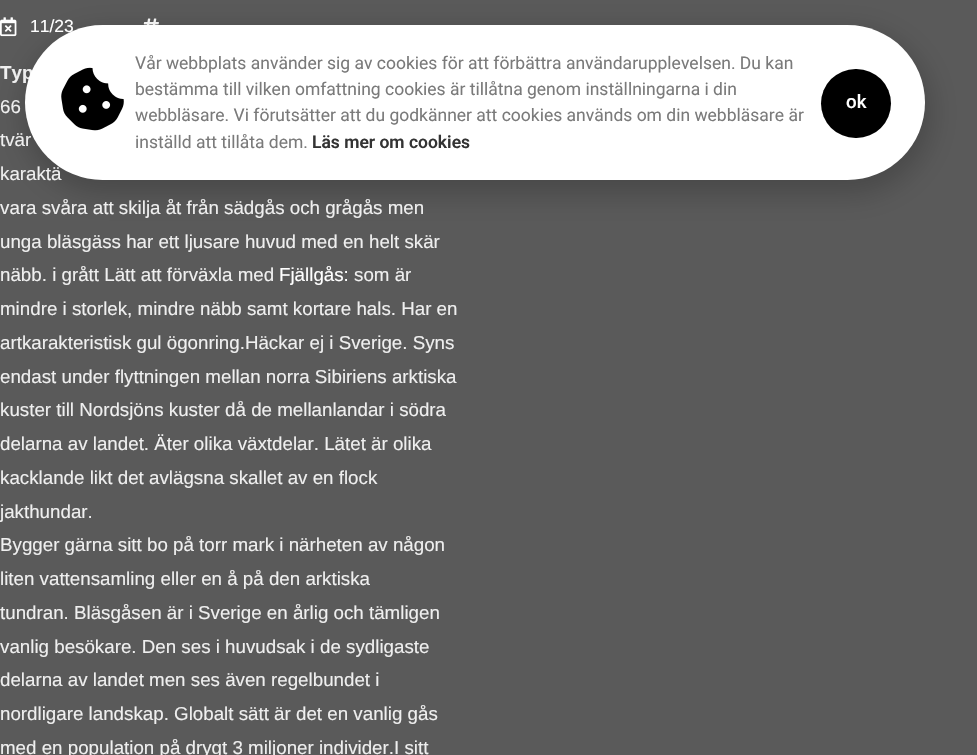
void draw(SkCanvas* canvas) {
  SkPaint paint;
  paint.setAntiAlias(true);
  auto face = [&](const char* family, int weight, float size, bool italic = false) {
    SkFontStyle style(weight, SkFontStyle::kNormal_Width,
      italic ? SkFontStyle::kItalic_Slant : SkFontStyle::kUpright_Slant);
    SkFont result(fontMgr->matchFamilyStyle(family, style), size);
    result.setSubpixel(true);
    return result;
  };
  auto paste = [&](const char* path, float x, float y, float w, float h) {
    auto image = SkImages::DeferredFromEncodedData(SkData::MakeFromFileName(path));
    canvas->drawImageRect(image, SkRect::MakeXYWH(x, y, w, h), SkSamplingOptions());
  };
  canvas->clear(0xff5a5a5a);
  paste("img/1.png", 0, 17, 17, 20);
  paste("img/2.png", 143, 18, 16, 7);
  paint.setColor(0x33000000);
  paint.setMaskFilter(SkMaskFilter::MakeBlur(kNormal_SkBlurStyle, 14.5f));
  canvas->drawRoundRect(SkRect::MakeXYWH(24, 31, 907, 163), 81.5f, 81.5f, paint);
  paint.setMaskFilter(nullptr);
  auto f0 = face("Liberation Sans", 400, 17.5f);
  paint.setColor(0xffffffff);
  canvas->drawString("11/23", 30, 32, f0, paint);
  auto f1 = face("Liberation Sans", 700, 18.75f);
  paint.setColor(0xffefefef);
  canvas->drawString("Typ", 0, 79, f1, paint);
  auto f2 = face("Liberation Sans", 400, 18.75f);
  {
    const struct { const char* s; float x, y; } items[] = {
      {"66", 0, 113},
      {"tvär", 0, 146},
      {"karaktä", 0, 180},
      {"vara svåra att skilja åt från sädgås och grågås men", 0, 214},
      {"unga bläsgäss har ett ljusare huvud med en helt skär", 0, 248},
      {"näbb. i grått Lätt att förväxla med", 0, 281},
    };
    for (auto [s, x, y] : items) {
      canvas->drawString(s, x, y, f2, paint);
    }
  }
  paint.setColor(0xffffffff);
  canvas->drawString("Fjällgås:", 279, 281, f2, paint);
  paint.setColor(0xffefefef);
  {
    const struct { const char* s; float x, y; } items[] = {
      {"som är", 354, 281},
      {"mindre i storlek, mindre näbb samt kortare hals. Har en", 0, 315},
      {"artkarakteristisk gul ögonring.Häckar ej i Sverige. Syns", 0, 349},
      {"endast under flyttningen mellan norra Sibiriens arktiska", 0, 383},
      {"kuster till Nordsjöns kuster då de mellanlandar i södra", 0, 416},
      {"delarna av landet. Äter olika växtdelar. Lätet är olika", 0, 450},
      {"kacklande likt det avlägsna skallet av en flock", 0, 484},
      {"jakthundar.", 0, 518},
      {"Bygger gärna sitt bo på torr mark i närheten av någon", 0, 551},
      {"liten vattensamling eller en å på den arktiska", 0, 585},
      {"tundran. Bläsgåsen är i Sverige en årlig och tämligen", 0, 619},
      {"vanlig besökare. Den ses i huvudsak i de sydligaste", 0, 653},
      {"delarna av landet men ses även regelbundet i", 0, 686},
      {"nordligare landskap. Globalt sätt är det en vanlig gås", 0, 720},
      {"med en population på drygt 3 miljoner individer.I sitt", 0, 754},
    };
    for (auto [s, x, y] : items) {
      canvas->drawString(s, x, y, f2, paint);
    }
  }
  paint.setColor(0xffffffff);
  canvas->drawRoundRect(SkRect::MakeXYWH(25, 25, 900, 155), 77.5f, 77.5f, paint);
  paste("img/3.png", 61, 67, 63, 64);
  auto f3 = face("Roboto", 400, 17.5f);
  paint.setColor(0xff7a7a7a);
  {
    const struct { const char* s; float x, y; } items[] = {
      {"Vår webbplats använder sig av cookies för att förbättra användarupplevelsen. Du kan", 135, 69},
      {"bestämma till vilken omfattning cookies är tillåtna genom inställningarna i din", 135, 95},
      {"webbläsare. Vi förutsätter att du godkänner att cookies används om din webbläsare är", 135, 121},
      {"inställd att tillåta dem.", 135, 148},
    };
    for (auto [s, x, y] : items) {
      canvas->drawString(s, x, y, f3, paint);
    }
  }
  auto f4 = face("Roboto", 600, 17.5f);
  paint.setColor(0xff333333);
  canvas->drawString("Läs mer om cookies", 312, 148, f4, paint);
  paint.setColor(0xff000000);
  canvas->drawRoundRect(SkRect::MakeXYWH(821, 69, 70, 69), 34.5f, 34.5f, paint);
  auto f5 = face("Roboto", 500, 18.75f);
  paint.setColor(0xffffffff);
  canvas->drawString("ok", 846, 108, f5, paint);
}
